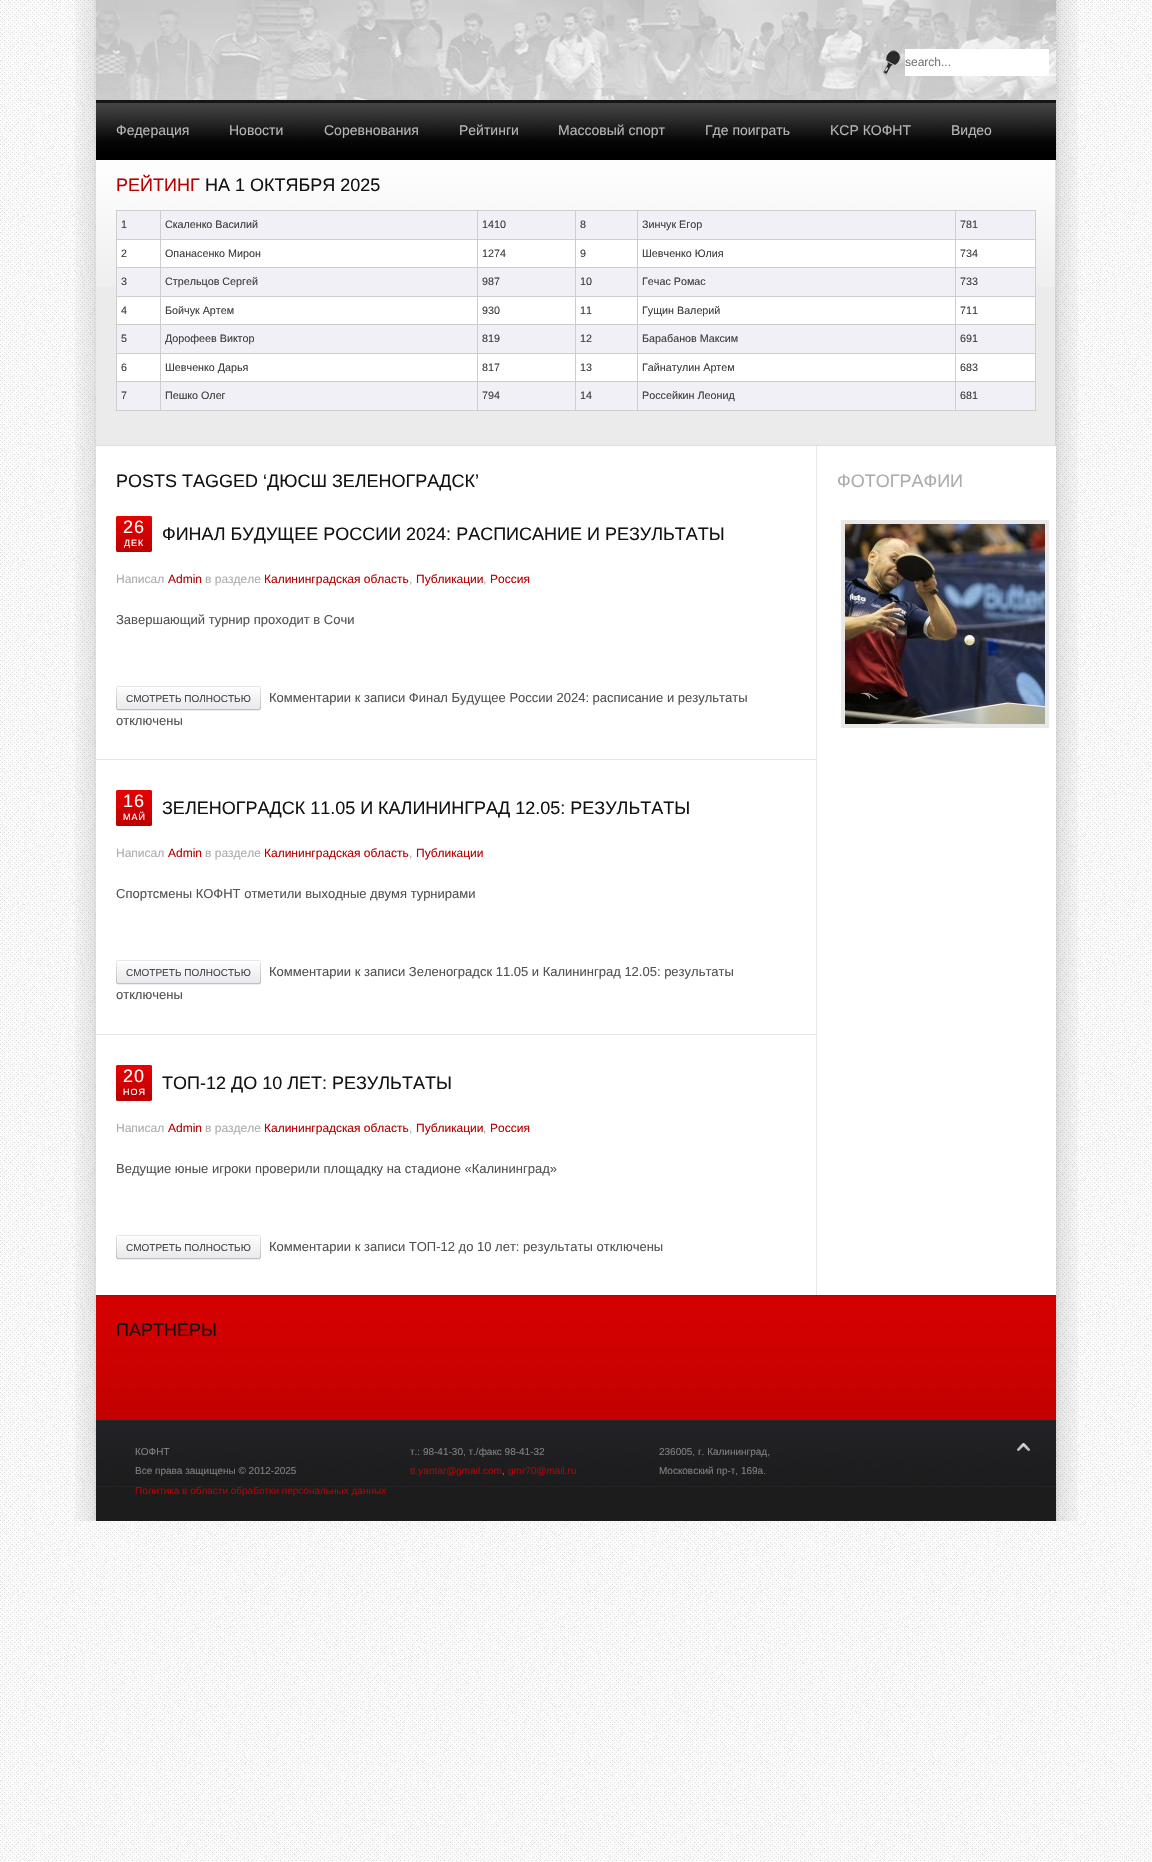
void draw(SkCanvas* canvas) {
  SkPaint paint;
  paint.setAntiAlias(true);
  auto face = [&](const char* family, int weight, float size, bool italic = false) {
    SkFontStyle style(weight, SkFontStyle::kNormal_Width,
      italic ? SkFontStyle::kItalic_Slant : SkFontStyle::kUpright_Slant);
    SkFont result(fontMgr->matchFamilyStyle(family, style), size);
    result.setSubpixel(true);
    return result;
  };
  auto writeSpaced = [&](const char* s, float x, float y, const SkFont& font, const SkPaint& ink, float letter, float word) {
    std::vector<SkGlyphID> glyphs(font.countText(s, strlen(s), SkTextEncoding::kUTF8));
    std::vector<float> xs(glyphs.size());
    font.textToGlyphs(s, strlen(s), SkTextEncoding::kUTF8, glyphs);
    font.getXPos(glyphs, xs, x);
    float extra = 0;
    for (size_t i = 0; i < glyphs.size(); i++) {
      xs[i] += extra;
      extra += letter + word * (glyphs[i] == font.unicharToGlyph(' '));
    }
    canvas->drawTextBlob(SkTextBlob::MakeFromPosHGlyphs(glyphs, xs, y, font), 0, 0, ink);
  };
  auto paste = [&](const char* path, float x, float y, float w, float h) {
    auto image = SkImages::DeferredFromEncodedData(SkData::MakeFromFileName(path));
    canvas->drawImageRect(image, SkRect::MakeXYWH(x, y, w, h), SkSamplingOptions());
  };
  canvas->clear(0xffffffff);
  paste("img/1.png", 0, 0, 1152, 1862);
  paste("img/2.png", 75, 0, 21, 1521);
  paste("img/3.png", 1056, 0, 22, 1521);
  paint.setColor(0xff1c1c1d);
  canvas->drawRect(SkRect::MakeXYWH(96, 1487, 960, 34), paint);
  paste("img/4.png", 96, 0, 960, 100);
  paint.setColor(0xffffffff);
  canvas->drawRect(SkRect::MakeXYWH(905, 49, 144, 27), paint);
  paste("img/5.png", 883, 50, 18, 25);
  paint.setColor(0xff161617);
  canvas->drawRect(SkRect::MakeXYWH(96, 100, 960, 1), paint);
  paste("img/6.png", 96, 101, 960, 59);
  paint.setColor(0xffebebeb);
  canvas->drawRect(SkRect::MakeXYWH(96, 287, 960, 158), paint);
  paste("img/7.png", 96, 160, 960, 127);
  {
    const struct { float x, y, w, h; SkColor color; } items[] = {
      {1055, 160, 1, 286, 0x1a000000},
      {96, 445, 960, 1, 0xffdedede},
      {116, 210, 920, 201, 0xffcdcdcd},
      {117, 211, 43, 28, 0xfff0f0f6},
      {161, 211, 316, 28, 0xfff0f0f6},
      {478, 211, 97, 28, 0xfff0f0f6},
      {576, 211, 61, 28, 0xfff0f0f6},
      {638, 211, 317, 28, 0xfff0f0f6},
      {956, 211, 79, 28, 0xfff0f0f6},
      {117, 240, 43, 27, 0xffffffff},
      {161, 240, 316, 27, 0xffffffff},
      {478, 240, 97, 27, 0xffffffff},
      {576, 240, 61, 27, 0xffffffff},
      {638, 240, 317, 27, 0xffffffff},
      {956, 240, 79, 27, 0xffffffff},
      {117, 268, 43, 28, 0xfff0f0f6},
      {161, 268, 316, 28, 0xfff0f0f6},
      {478, 268, 97, 28, 0xfff0f0f6},
      {576, 268, 61, 28, 0xfff0f0f6},
      {638, 268, 317, 28, 0xfff0f0f6},
      {956, 268, 79, 28, 0xfff0f0f6},
      {117, 297, 43, 27, 0xffffffff},
      {161, 297, 316, 27, 0xffffffff},
      {478, 297, 97, 27, 0xffffffff},
      {576, 297, 61, 27, 0xffffffff},
      {638, 297, 317, 27, 0xffffffff},
      {956, 297, 79, 27, 0xffffffff},
      {117, 325, 43, 28, 0xfff0f0f6},
      {161, 325, 316, 28, 0xfff0f0f6},
      {478, 325, 97, 28, 0xfff0f0f6},
      {576, 325, 61, 28, 0xfff0f0f6},
      {638, 325, 317, 28, 0xfff0f0f6},
      {956, 325, 79, 28, 0xfff0f0f6},
      {117, 354, 43, 27, 0xffffffff},
      {161, 354, 316, 27, 0xffffffff},
      {478, 354, 97, 27, 0xffffffff},
      {576, 354, 61, 27, 0xffffffff},
      {638, 354, 317, 27, 0xffffffff},
      {956, 354, 79, 27, 0xffffffff},
      {117, 382, 43, 28, 0xfff0f0f6},
      {161, 382, 316, 28, 0xfff0f0f6},
      {478, 382, 97, 28, 0xfff0f0f6},
      {576, 382, 61, 28, 0xfff0f0f6},
      {638, 382, 317, 28, 0xfff0f0f6},
      {956, 382, 79, 28, 0xfff0f0f6},
      {96, 446, 960, 849, 0xffffffff},
    };
    for (auto [x, y, w, h, color] : items) {
      paint.setColor(color);
      canvas->drawRect(SkRect::MakeXYWH(x, y, w, h), paint);
    }
  }
  paste("img/8.png", 116, 516, 36, 36);
  paste("img/9.png", 116, 686, 10, 25);
  paste("img/10.png", 251, 686, 10, 25);
  paste("img/11.png", 126, 686, 125, 25);
  paint.setColor(0xffe5e5e5);
  canvas->drawRect(SkRect::MakeXYWH(96, 759, 720, 1), paint);
  paste("img/8.png", 116, 790, 36, 36);
  paste("img/9.png", 116, 960, 10, 25);
  paste("img/10.png", 251, 960, 10, 25);
  paste("img/11.png", 126, 960, 125, 25);
  canvas->drawRect(SkRect::MakeXYWH(96, 1034, 720, 1), paint);
  paste("img/8.png", 116, 1065, 36, 36);
  paste("img/9.png", 116, 1235, 10, 25);
  paste("img/10.png", 251, 1235, 10, 25);
  paste("img/11.png", 126, 1235, 125, 25);
  paint.setColor(0xffe8e8e9);
  canvas->drawRect(SkRect::MakeXYWH(816, 446, 1, 849), paint);
  paint.setColor(0xffe8e8e8);
  canvas->drawRect(SkRect::MakeXYWH(841, 520, 208, 208), paint);
  paste("img/12.png", 845, 524, 200, 200);
  paint.setColor(0xff292929);
  canvas->drawRect(SkRect::MakeXYWH(96, 1420, 960, 1), paint);
  paint.setColor(0xffbb0000);
  canvas->drawRect(SkRect::MakeXYWH(96, 1295, 960, 125), paint);
  paste("img/13.png", 96, 1295, 960, 125);
  paste("img/14.png", 96, 1421, 960, 66);
  paste("img/15.png", 1017, 1443, 13, 8);
  auto f0 = face("Liberation Sans", 400, 12);
  paint.setColor(0xff757575);
  canvas->drawString("search...", 905, 66, f0, paint);
  auto f1 = face("Liberation Sans", 400, 14);
  paint.setColor(0xffb7b7b7);
  {
    const struct { const char* s; float x, y; } items[] = {
      {"Федерация", 116, 135},
      {"Новости", 229, 135},
      {"Соревнования", 324, 135},
      {"Рейтинги", 459, 135},
      {"Массовый спорт", 558, 135},
      {"Где поиграть", 705, 135},
      {"KCР КОФНТ", 830, 135},
      {"Видео", 951, 135},
    };
    for (auto [s, x, y] : items) {
      canvas->drawString(s, x, y, f1, paint);
    }
  }
  auto f2 = face("Liberation Sans", 400, 18);
  paint.setColor(0xffb90000);
  canvas->drawString("РЕЙТИНГ", 116, 191, f2, paint);
  paint.setColor(0xff121314);
  canvas->drawString("НА 1 ОКТЯБРЯ 2025", 205, 191, f2, paint);
  auto f3 = face("Liberation Sans", 400, 10.75f);
  paint.setColor(0xff3d3d3d);
  {
    const struct { const char* s; float x, y; } items[] = {
      {"1", 121, 228},
      {"Скаленко Василий", 165, 228},
      {"1410", 482, 228},
      {"8", 580, 228},
      {"Зинчук Егор", 642, 228},
      {"781", 960, 228},
      {"2", 121, 257},
      {"Опанасенко Мирон", 165, 257},
      {"1274", 482, 257},
      {"9", 580, 257},
      {"Шевченко Юлия", 642, 257},
      {"734", 960, 257},
      {"3", 121, 285},
      {"Стрельцов Сергей", 165, 285},
      {"987", 482, 285},
      {"10", 580, 285},
      {"Гечас Ромас", 642, 285},
      {"733", 960, 285},
      {"4", 121, 314},
      {"Бойчук Артем", 165, 314},
      {"930", 482, 314},
      {"11", 580, 314},
      {"Гущин Валерий", 642, 314},
      {"711", 960, 314},
      {"5", 121, 342},
      {"Дорофеев Виктор", 165, 342},
      {"819", 482, 342},
      {"12", 580, 342},
      {"Барабанов Максим", 642, 342},
      {"691", 960, 342},
      {"6", 121, 371},
      {"Шевченко Дарья", 165, 371},
      {"817", 482, 371},
      {"13", 580, 371},
      {"Гайнатулин Артем", 642, 371},
      {"683", 960, 371},
      {"7", 121, 399},
      {"Пешко Олег", 165, 399},
      {"794", 482, 399},
      {"14", 580, 399},
      {"Россейкин Леонид", 642, 399},
      {"681", 960, 399},
    };
    for (auto [s, x, y] : items) {
      canvas->drawString(s, x, y, f3, paint);
    }
  }
  paint.setColor(0xff121314);
  canvas->drawString("POSTS TAGGED ‘ДЮСШ ЗЕЛЕНОГРАДСК’", 116, 487, f2, paint);
  paint.setColor(0xffffffff);
  writeSpaced("26", 123, 533, f2, paint, 1, 0);
  auto f4 = face("Liberation Sans", 400, 9);
  writeSpaced("ДЕК", 124, 546, f4, paint, 1, 0);
  paint.setColor(0xff121314);
  canvas->drawString("ФИНАЛ БУДУЩЕЕ РОССИИ 2024: РАСПИСАНИЕ И РЕЗУЛЬТАТЫ", 162, 540, f2, paint);
  paint.setColor(0xffacacad);
  canvas->drawString("Написал", 116, 583, f0, paint);
  paint.setColor(0xffb90000);
  canvas->drawString("Admin", 168, 583, f0, paint);
  paint.setColor(0xffacacad);
  canvas->drawString("в разделе", 205, 583, f0, paint);
  paint.setColor(0xffb90000);
  canvas->drawString("Калининградская область", 264, 583, f0, paint);
  paint.setColor(0xffacacad);
  canvas->drawString(",", 409, 583, f0, paint);
  paint.setColor(0xffb90000);
  canvas->drawString("Публикации", 416, 583, f0, paint);
  paint.setColor(0xffacacad);
  canvas->drawString(",", 483, 583, f0, paint);
  paint.setColor(0xffb90000);
  canvas->drawString("Россия", 490, 583, f0, paint);
  auto f5 = face("Liberation Sans", 400, 13);
  paint.setColor(0xff525253);
  canvas->drawString("Завершающий турнир проходит в Сочи", 116, 624, f5, paint);
  auto f6 = face("Liberation Sans", 400, 10);
  paint.setColor(0xff464648);
  canvas->drawString("СМОТРЕТЬ ПОЛНОСТЬЮ", 126, 702, f6, paint);
  paint.setColor(0xff525253);
  canvas->drawString("Комментарии к записи Финал Будущее России 2024: расписание и результаты", 269, 702, f5, paint);
  canvas->drawString("отключены", 116, 725, f5, paint);
  paint.setColor(0xffffffff);
  writeSpaced("16", 123, 807, f2, paint, 1, 0);
  writeSpaced("МАЙ", 123, 820, f4, paint, 1, 0);
  paint.setColor(0xff121314);
  canvas->drawString("ЗЕЛЕНОГРАДСК 11.05 И КАЛИНИНГРАД 12.05: РЕЗУЛЬТАТЫ", 162, 814, f2, paint);
  paint.setColor(0xffacacad);
  canvas->drawString("Написал", 116, 857, f0, paint);
  paint.setColor(0xffb90000);
  canvas->drawString("Admin", 168, 857, f0, paint);
  paint.setColor(0xffacacad);
  canvas->drawString("в разделе", 205, 857, f0, paint);
  paint.setColor(0xffb90000);
  canvas->drawString("Калининградская область", 264, 857, f0, paint);
  paint.setColor(0xffacacad);
  canvas->drawString(",", 409, 857, f0, paint);
  paint.setColor(0xffb90000);
  canvas->drawString("Публикации", 416, 857, f0, paint);
  paint.setColor(0xff525253);
  canvas->drawString("Спортсмены КОФНТ отметили выходные двумя турнирами", 116, 898, f5, paint);
  paint.setColor(0xff464648);
  canvas->drawString("СМОТРЕТЬ ПОЛНОСТЬЮ", 126, 976, f6, paint);
  paint.setColor(0xff525253);
  canvas->drawString("Комментарии к записи Зеленоградск 11.05 и Калининград 12.05: результаты", 269, 976, f5, paint);
  canvas->drawString("отключены", 116, 999, f5, paint);
  paint.setColor(0xffffffff);
  writeSpaced("20", 123, 1082, f2, paint, 1, 0);
  writeSpaced("НОЯ", 123, 1095, f4, paint, 1, 0);
  paint.setColor(0xff121314);
  canvas->drawString("ТОП-12 ДО 10 ЛЕТ: РЕЗУЛЬТАТЫ", 162, 1089, f2, paint);
  paint.setColor(0xffacacad);
  canvas->drawString("Написал", 116, 1132, f0, paint);
  paint.setColor(0xffb90000);
  canvas->drawString("Admin", 168, 1132, f0, paint);
  paint.setColor(0xffacacad);
  canvas->drawString("в разделе", 205, 1132, f0, paint);
  paint.setColor(0xffb90000);
  canvas->drawString("Калининградская область", 264, 1132, f0, paint);
  paint.setColor(0xffacacad);
  canvas->drawString(",", 409, 1132, f0, paint);
  paint.setColor(0xffb90000);
  canvas->drawString("Публикации", 416, 1132, f0, paint);
  paint.setColor(0xffacacad);
  canvas->drawString(",", 483, 1132, f0, paint);
  paint.setColor(0xffb90000);
  canvas->drawString("Россия", 490, 1132, f0, paint);
  paint.setColor(0xff525253);
  canvas->drawString("Ведущие юные игроки проверили площадку на стадионе «Калининград»", 116, 1173, f5, paint);
  paint.setColor(0xff464648);
  canvas->drawString("СМОТРЕТЬ ПОЛНОСТЬЮ", 126, 1251, f6, paint);
  paint.setColor(0xff525253);
  canvas->drawString("Комментарии к записи ТОП-12 до 10 лет: результаты отключены", 269, 1251, f5, paint);
  paint.setColor(0xffacacad);
  canvas->drawString("ФОТОГРАФИИ", 837, 487, f2, paint);
  paint.setColor(0xff121314);
  canvas->drawString("ПАРТНЁРЫ", 116, 1336, f2, paint);
  paint.setColor(0xff808080);
  canvas->drawString("КОФНТ", 135, 1455, f6, paint);
  canvas->drawString("Все права защищены © 2012-2025", 135, 1474, f6, paint);
  paint.setColor(0xffb90000);
  canvas->drawString("Политика в области обработки персональных данных", 135, 1494, f6, paint);
  paint.setColor(0xff808080);
  canvas->drawString("т.: 98-41-30, т./факс 98-41-32", 410, 1455, f6, paint);
  paint.setColor(0xffb90000);
  canvas->drawString("tt.yantar@gmail.com", 410, 1474, f6, paint);
  paint.setColor(0xff808080);
  canvas->drawString(",", 502, 1474, f6, paint);
  paint.setColor(0xffb90000);
  canvas->drawString("gmr70@mail.ru", 508, 1474, f6, paint);
  paint.setColor(0xff808080);
  canvas->drawString("236005, г. Калининград,", 659, 1455, f6, paint);
  canvas->drawString("Московский пр-т, 169а.", 659, 1474, f6, paint);
}
